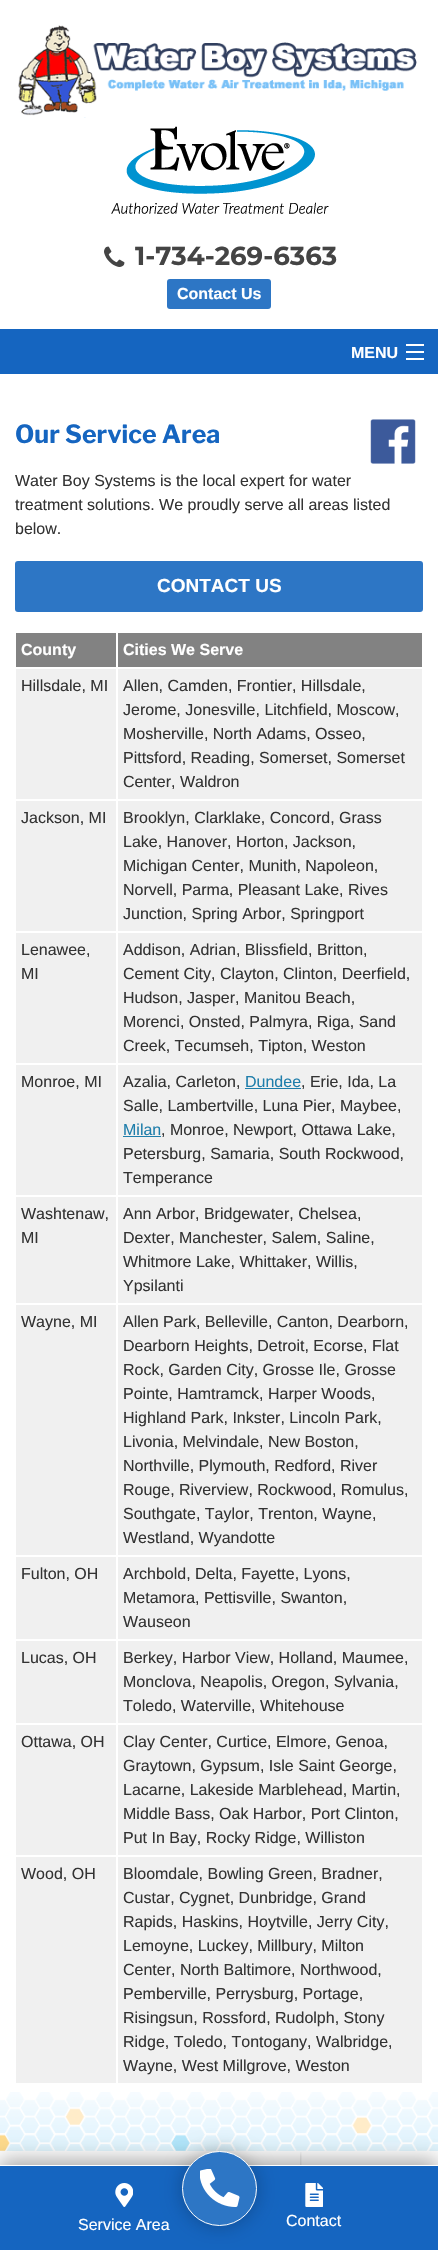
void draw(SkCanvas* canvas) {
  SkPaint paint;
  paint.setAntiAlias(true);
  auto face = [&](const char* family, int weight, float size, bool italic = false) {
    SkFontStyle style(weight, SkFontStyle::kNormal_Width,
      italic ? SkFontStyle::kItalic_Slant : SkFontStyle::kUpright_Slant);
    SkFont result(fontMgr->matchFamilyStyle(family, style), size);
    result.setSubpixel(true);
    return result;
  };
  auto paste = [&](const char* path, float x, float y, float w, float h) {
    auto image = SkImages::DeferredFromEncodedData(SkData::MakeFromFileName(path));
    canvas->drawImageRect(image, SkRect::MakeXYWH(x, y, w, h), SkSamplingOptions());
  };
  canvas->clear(0xffffffff);
  paste("img/1.png", 18, 25, 399, 93);
  paste("img/2.png", 111, 126, 218, 88);
  paste("img/3.png", 104, 246, 21, 21);
  paint.setColor(0xff2d76c5);
  canvas->drawRoundRect(SkRect::MakeXYWH(167, 279, 104, 30), 3, 3, paint);
  {
    const struct { float x, y, w, h; SkColor color; } items[] = {
      {0, 329, 438, 45, 0xff1565c0},
      {406, 358, 18, 2, 0xffffffff},
      {406, 351, 18, 2, 0xffffffff},
      {406, 344, 18, 2, 0xffffffff},
    };
    for (auto [x, y, w, h, color] : items) {
      paint.setColor(color);
      canvas->drawRect(SkRect::MakeXYWH(x, y, w, h), paint);
    }
  }
  paste("img/4.png", 370, 419, 46, 45);
  paint.setColor(0xff2d76c5);
  canvas->drawRoundRect(SkRect::MakeXYWH(15, 561, 408, 51), 3, 3, paint);
  paint.setColor(0xff828282);
  canvas->drawRect(SkRect::MakeXYWH(16, 633, 406, 34), paint);
  paint.setStroke(true);
  paint.setStrokeWidth(1);
  paint.setColor(0xffffffff);
  canvas->drawRect(SkRect::MakeXYWH(15.5f, 632.5f, 101, 35), paint);
  canvas->drawRect(SkRect::MakeXYWH(117.5f, 632.5f, 305, 35), paint);
  paint.setStroke(false);
  paint.setColor(0xfff0f0f0);
  canvas->drawRect(SkRect::MakeXYWH(16, 669, 406, 130), paint);
  paint.setStroke(true);
  paint.setColor(0xffffffff);
  canvas->drawRect(SkRect::MakeXYWH(15.5f, 668.5f, 101, 131), paint);
  canvas->drawRect(SkRect::MakeXYWH(117.5f, 668.5f, 305, 131), paint);
  paint.setStroke(false);
  paint.setColor(0xfff0f0f0);
  canvas->drawRect(SkRect::MakeXYWH(16, 801, 406, 130), paint);
  paint.setStroke(true);
  paint.setColor(0xffffffff);
  canvas->drawRect(SkRect::MakeXYWH(15.5f, 800.5f, 101, 131), paint);
  canvas->drawRect(SkRect::MakeXYWH(117.5f, 800.5f, 305, 131), paint);
  paint.setStroke(false);
  paint.setColor(0xfff0f0f0);
  canvas->drawRect(SkRect::MakeXYWH(16, 933, 406, 130), paint);
  paint.setStroke(true);
  paint.setColor(0xffffffff);
  canvas->drawRect(SkRect::MakeXYWH(15.5f, 932.5f, 101, 131), paint);
  canvas->drawRect(SkRect::MakeXYWH(117.5f, 932.5f, 305, 131), paint);
  paint.setStroke(false);
  paint.setColor(0xfff0f0f0);
  canvas->drawRect(SkRect::MakeXYWH(16, 1065, 406, 130), paint);
  paint.setStroke(true);
  paint.setColor(0xffffffff);
  canvas->drawRect(SkRect::MakeXYWH(15.5f, 1064.5f, 101, 131), paint);
  canvas->drawRect(SkRect::MakeXYWH(117.5f, 1064.5f, 305, 131), paint);
  paint.setStroke(false);
  {
    const struct { float x, y, w, h; SkColor color; } items[] = {
      {245, 1088, 56, 1, 0xff1f7eab},
      {123, 1136, 38, 1, 0xff1f7eab},
      {16, 1197, 406, 106, 0xfff0f0f0},
    };
    for (auto [x, y, w, h, color] : items) {
      paint.setColor(color);
      canvas->drawRect(SkRect::MakeXYWH(x, y, w, h), paint);
    }
  }
  paint.setStroke(true);
  paint.setColor(0xffffffff);
  canvas->drawRect(SkRect::MakeXYWH(15.5f, 1196.5f, 101, 107), paint);
  canvas->drawRect(SkRect::MakeXYWH(117.5f, 1196.5f, 305, 107), paint);
  paint.setStroke(false);
  paint.setColor(0xfff0f0f0);
  canvas->drawRect(SkRect::MakeXYWH(16, 1305, 406, 250), paint);
  paint.setStroke(true);
  paint.setColor(0xffffffff);
  canvas->drawRect(SkRect::MakeXYWH(15.5f, 1304.5f, 101, 251), paint);
  canvas->drawRect(SkRect::MakeXYWH(117.5f, 1304.5f, 305, 251), paint);
  paint.setStroke(false);
  paint.setColor(0xfff0f0f0);
  canvas->drawRect(SkRect::MakeXYWH(16, 1557, 406, 82), paint);
  paint.setStroke(true);
  paint.setColor(0xffffffff);
  canvas->drawRect(SkRect::MakeXYWH(15.5f, 1556.5f, 101, 83), paint);
  canvas->drawRect(SkRect::MakeXYWH(117.5f, 1556.5f, 305, 83), paint);
  paint.setStroke(false);
  paint.setColor(0xfff0f0f0);
  canvas->drawRect(SkRect::MakeXYWH(16, 1641, 406, 82), paint);
  paint.setStroke(true);
  paint.setColor(0xffffffff);
  canvas->drawRect(SkRect::MakeXYWH(15.5f, 1640.5f, 101, 83), paint);
  canvas->drawRect(SkRect::MakeXYWH(117.5f, 1640.5f, 305, 83), paint);
  paint.setStroke(false);
  paint.setColor(0xfff0f0f0);
  canvas->drawRect(SkRect::MakeXYWH(16, 1725, 406, 130), paint);
  paint.setStroke(true);
  paint.setColor(0xffffffff);
  canvas->drawRect(SkRect::MakeXYWH(15.5f, 1724.5f, 101, 131), paint);
  canvas->drawRect(SkRect::MakeXYWH(117.5f, 1724.5f, 305, 131), paint);
  paint.setStroke(false);
  paint.setColor(0xfff0f0f0);
  canvas->drawRect(SkRect::MakeXYWH(16, 1857, 406, 226), paint);
  paint.setStroke(true);
  paint.setColor(0xffffffff);
  canvas->drawRect(SkRect::MakeXYWH(15.5f, 1856.5f, 101, 227), paint);
  canvas->drawRect(SkRect::MakeXYWH(117.5f, 1856.5f, 305, 227), paint);
  paste("img/5.png", 0, 2092, 438, 59);
  canvas->save();
  canvas->clipRect(SkRect::MakeXYWH(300, 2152, 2, 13));
  paint.setStroke(false);
  paint.setColor(0x4d000000);
  paint.setMaskFilter(SkMaskFilter::MakeBlur(kNormal_SkBlurStyle, 2));
  canvas->drawRect(SkRect::MakeXYWH(1, 2153, 298, 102), paint);
  paint.setMaskFilter(nullptr);
  canvas->restore();
  paint.setColor(0x59000000);
  paint.setMaskFilter(SkMaskFilter::MakeBlur(kNormal_SkBlurStyle, 10));
  canvas->drawRect(SkRect::MakeXYWH(0, 2160, 438, 85), paint);
  paint.setMaskFilter(nullptr);
  paint.setColor(0xff1565c0);
  canvas->drawRect(SkRect::MakeXYWH(0, 2166, 438, 84), paint);
  paint.setColor(0xffffffff);
  canvas->drawRect(SkRect::MakeXYWH(0, 2165, 438, 1), paint);
  paste("img/6.png", 115, 2183, 18, 24);
  paint.setColor(0x40000000);
  paint.setMaskFilter(SkMaskFilter::MakeBlur(kNormal_SkBlurStyle, 10));
  canvas->drawRoundRect(SkRect::MakeXYWH(182, 2151, 75, 75), 37.5f, 37.5f, paint);
  paint.setMaskFilter(nullptr);
  paint.setColor(0xff2d76c5);
  canvas->drawCircle(219.5f, 2188.5f, 37, paint);
  paint.setStroke(true);
  paint.setColor(0xffffffff);
  canvas->drawCircle(219.5f, 2188.5f, 37, paint);
  paste("img/7.png", 200, 2169, 40, 38);
  paste("img/8.png", 305, 2183, 18, 24);
  auto f0 = face("Montserrat", 700, 26);
  paint.setStroke(false);
  paint.setColor(0xff444444);
  canvas->drawString("1-734-269-6363", 135, 265, f0, paint);
  auto f1 = face("Liberation Sans", 700, 16);
  paint.setColor(0xffffffff);
  canvas->drawString("Contact Us", 177, 299, f1, paint);
  canvas->drawString("MENU", 351, 358, f1, paint);
  auto f2 = face("Libre Franklin", 700, 25);
  paint.setColor(0xff1565c0);
  canvas->drawString("Our Service Area", 15, 443, f2, paint);
  auto f3 = face("Liberation Sans", 400, 16);
  paint.setColor(0xff333333);
  {
    const struct { const char* s; float x, y; } items[] = {
      {"Water Boy Systems is the local expert for water", 15, 486},
      {"treatment solutions. We proudly serve all areas listed", 15, 510},
      {"below.", 15, 534},
    };
    for (auto [s, x, y] : items) {
      canvas->drawString(s, x, y, f3, paint);
    }
  }
  auto f4 = face("Liberation Sans", 700, 19);
  paint.setColor(0xffffffff);
  canvas->drawString("CONTACT US", 157, 592, f4, paint);
  canvas->drawString("County", 21, 655, f1, paint);
  canvas->drawString("Cities We Serve", 123, 655, f1, paint);
  paint.setColor(0xff333333);
  {
    const struct { const char* s; float x, y; } items[] = {
      {"Hillsdale, MI", 21, 691},
      {"Allen, Camden, Frontier, Hillsdale,", 123, 691},
      {"Jerome, Jonesville, Litchfield, Moscow,", 123, 715},
      {"Mosherville, North Adams, Osseo,", 123, 739},
      {"Pittsford, Reading, Somerset, Somerset", 123, 763},
      {"Center, Waldron", 123, 787},
      {"Jackson, MI", 21, 823},
      {"Brooklyn, Clarklake, Concord, Grass", 123, 823},
      {"Lake, Hanover, Horton, Jackson,", 123, 847},
      {"Michigan Center, Munith, Napoleon,", 123, 871},
      {"Norvell, Parma, Pleasant Lake, Rives", 123, 895},
      {"Junction, Spring Arbor, Springport", 123, 919},
      {"Lenawee,", 21, 955},
      {"MI", 21, 979},
      {"Addison, Adrian, Blissfield, Britton,", 123, 955},
      {"Cement City, Clayton, Clinton, Deerfield,", 123, 979},
      {"Hudson, Jasper, Manitou Beach,", 123, 1003},
      {"Morenci, Onsted, Palmyra, Riga, Sand", 123, 1027},
      {"Creek, Tecumseh, Tipton, Weston", 123, 1051},
      {"Monroe, MI", 21, 1087},
      {"Azalia, Carleton,", 123, 1087},
    };
    for (auto [s, x, y] : items) {
      canvas->drawString(s, x, y, f3, paint);
    }
  }
  paint.setColor(0xff1f7eab);
  canvas->drawString("Dundee", 245, 1087, f3, paint);
  paint.setColor(0xff333333);
  canvas->drawString(", Erie, Ida, La", 301, 1087, f3, paint);
  canvas->drawString("Salle, Lambertville, Luna Pier, Maybee,", 123, 1111, f3, paint);
  paint.setColor(0xff1f7eab);
  canvas->drawString("Milan", 123, 1135, f3, paint);
  paint.setColor(0xff333333);
  {
    const struct { const char* s; float x, y; } items[] = {
      {", Monroe, Newport, Ottawa Lake,", 161, 1135},
      {"Petersburg, Samaria, South Rockwood,", 123, 1159},
      {"Temperance", 123, 1183},
      {"Washtenaw,", 21, 1219},
      {"MI", 21, 1243},
      {"Ann Arbor, Bridgewater, Chelsea,", 123, 1219},
      {"Dexter, Manchester, Salem, Saline,", 123, 1243},
      {"Whitmore Lake, Whittaker, Willis,", 123, 1267},
      {"Ypsilanti", 123, 1291},
      {"Wayne, MI", 21, 1327},
      {"Allen Park, Belleville, Canton, Dearborn,", 123, 1327},
      {"Dearborn Heights, Detroit, Ecorse, Flat", 123, 1351},
      {"Rock, Garden City, Grosse Ile, Grosse", 123, 1375},
      {"Pointe, Hamtramck, Harper Woods,", 123, 1399},
      {"Highland Park, Inkster, Lincoln Park,", 123, 1423},
      {"Livonia, Melvindale, New Boston,", 123, 1447},
      {"Northville, Plymouth, Redford, River", 123, 1471},
      {"Rouge, Riverview, Rockwood, Romulus,", 123, 1495},
      {"Southgate, Taylor, Trenton, Wayne,", 123, 1519},
      {"Westland, Wyandotte", 123, 1543},
      {"Fulton, OH", 21, 1579},
      {"Archbold, Delta, Fayette, Lyons,", 123, 1579},
      {"Metamora, Pettisville, Swanton,", 123, 1603},
      {"Wauseon", 123, 1627},
      {"Lucas, OH", 21, 1663},
      {"Berkey, Harbor View, Holland, Maumee,", 123, 1663},
      {"Monclova, Neapolis, Oregon, Sylvania,", 123, 1687},
      {"Toledo, Waterville, Whitehouse", 123, 1711},
      {"Ottawa, OH", 21, 1747},
      {"Clay Center, Curtice, Elmore, Genoa,", 123, 1747},
      {"Graytown, Gypsum, Isle Saint George,", 123, 1771},
      {"Lacarne, Lakeside Marblehead, Martin,", 123, 1795},
      {"Middle Bass, Oak Harbor, Port Clinton,", 123, 1819},
      {"Put In Bay, Rocky Ridge, Williston", 123, 1843},
      {"Wood, OH", 21, 1879},
      {"Bloomdale, Bowling Green, Bradner,", 123, 1879},
      {"Custar, Cygnet, Dunbridge, Grand", 123, 1903},
      {"Rapids, Haskins, Hoytville, Jerry City,", 123, 1927},
      {"Lemoyne, Luckey, Millbury, Milton", 123, 1951},
      {"Center, North Baltimore, Northwood,", 123, 1975},
      {"Pemberville, Perrysburg, Portage,", 123, 1999},
      {"Risingsun, Rossford, Rudolph, Stony", 123, 2023},
      {"Ridge, Toledo, Tontogany, Walbridge,", 123, 2047},
      {"Wayne, West Millgrove, Weston", 123, 2071},
    };
    for (auto [s, x, y] : items) {
      canvas->drawString(s, x, y, f3, paint);
    }
  }
  paint.setColor(0xffffffff);
  canvas->drawString("Service Area", 78, 2230, f3, paint);
  canvas->drawString("Contact", 286, 2226, f3, paint);
}
